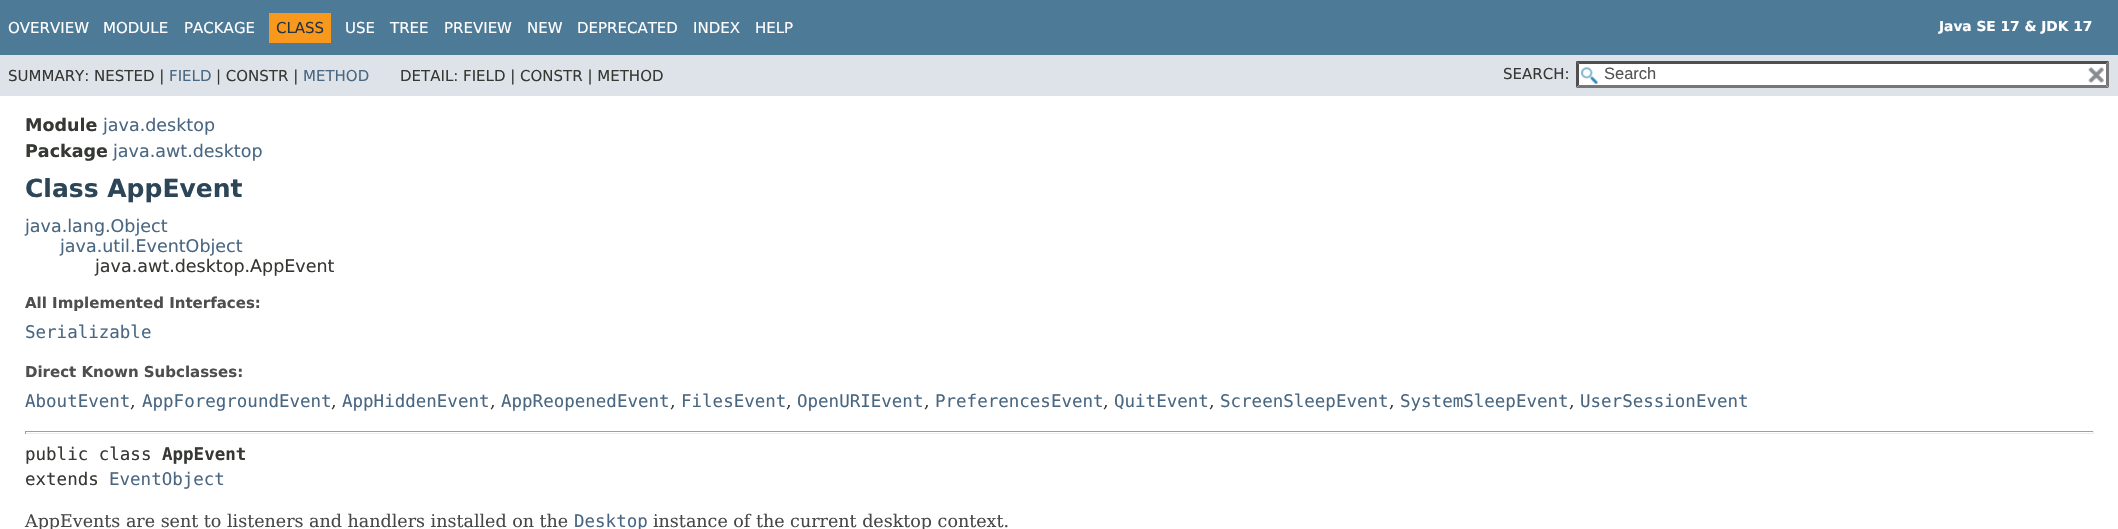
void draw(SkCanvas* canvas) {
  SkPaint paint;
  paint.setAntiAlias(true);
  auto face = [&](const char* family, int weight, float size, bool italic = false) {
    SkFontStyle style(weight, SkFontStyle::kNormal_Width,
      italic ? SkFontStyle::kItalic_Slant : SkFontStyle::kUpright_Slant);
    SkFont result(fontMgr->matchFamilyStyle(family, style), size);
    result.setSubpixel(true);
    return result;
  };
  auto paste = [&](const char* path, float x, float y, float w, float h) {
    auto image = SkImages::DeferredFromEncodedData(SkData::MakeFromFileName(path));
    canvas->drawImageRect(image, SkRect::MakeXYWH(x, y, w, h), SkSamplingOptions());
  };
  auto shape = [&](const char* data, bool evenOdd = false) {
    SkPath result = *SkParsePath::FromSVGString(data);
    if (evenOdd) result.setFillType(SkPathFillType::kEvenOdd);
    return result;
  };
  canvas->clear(0xffffffff);
  {
    const struct { float x, y, w, h; SkColor color; } items[] = {
      {0, 0, 2118, 55, 0xff4d7a97},
      {269, 13, 62, 30, 0xfff8981d},
      {0, 55, 2118, 41, 0xffdee3e9},
      {1576, 61, 533, 27, 0xffffffff},
    };
    for (auto [x, y, w, h, color] : items) {
      paint.setColor(color);
      canvas->drawRect(SkRect::MakeXYWH(x, y, w, h), paint);
    }
  }
  paste("img/1.png", 1581, 67, 17, 17);
  paint.setColor(0xff4f4f4f);
  canvas->drawPath(shape("M1576 61H2109L2106 64H1579Z"), paint);
  paint.setColor(0xff767676);
  canvas->drawPath(shape("M2109 61V87.5L2106 85V64Z"), paint);
  canvas->drawPath(shape("M2109 88H1576L1579 85H2106Z"), paint);
  paint.setColor(0xff4f4f4f);
  canvas->drawPath(shape("M1576 87.5V61L1579 64V85Z"), paint);
  paste("img/2.png", 2088, 67, 16, 16);
  {
    const struct { float x, y, w, h; SkColor color; } items[] = {
      {25, 431, 2069, 1, 0xff9f9f9f},
      {2093, 431, 1, 3, 0xffeeeeee},
      {25, 433, 2069, 1, 0xffeeeeee},
      {25, 431, 1, 3, 0xff9f9f9f},
    };
    for (auto [x, y, w, h, color] : items) {
      paint.setColor(color);
      canvas->drawRect(SkRect::MakeXYWH(x, y, w, h), paint);
    }
  }
  auto f0 = face("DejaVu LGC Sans", 400, 15);
  paint.setColor(0xffffffff);
  {
    const struct { const char* s; float x, y; } items[] = {
      {"OVERVIEW", 8, 33},
      {"MODULE", 103, 33},
      {"PACKAGE", 184, 33},
    };
    for (auto [s, x, y] : items) {
      canvas->drawString(s, x, y, f0, paint);
    }
  }
  paint.setColor(0xff253441);
  canvas->drawString("CLASS", 276, 33, f0, paint);
  paint.setColor(0xffffffff);
  {
    const struct { const char* s; float x, y; } items[] = {
      {"USE", 345, 33},
      {"TREE", 390, 33},
      {"PREVIEW", 444, 33},
      {"NEW", 527, 33},
      {"DEPRECATED", 577, 33},
      {"INDEX", 693, 33},
      {"HELP", 755, 33},
    };
    for (auto [s, x, y] : items) {
      canvas->drawString(s, x, y, f0, paint);
    }
  }
  auto f1 = face("DejaVu LGC Sans", 700, 13.75f);
  canvas->drawString("Java SE 17 & JDK 17", 1939, 31, f1, paint);
  paint.setColor(0xff353833);
  canvas->drawString("SUMMARY: NESTED |", 8, 81, f0, paint);
  paint.setColor(0xff4a6782);
  canvas->drawString("FIELD", 169, 81, f0, paint);
  paint.setColor(0xff353833);
  canvas->drawString("| CONSTR |", 216, 81, f0, paint);
  paint.setColor(0xff4a6782);
  canvas->drawString("METHOD", 303, 81, f0, paint);
  paint.setColor(0xff353833);
  canvas->drawString("DETAIL: FIELD | CONSTR | METHOD", 400, 81, f0, paint);
  canvas->drawString("SEARCH:", 1503, 79, f0, paint);
  auto f2 = face("Liberation Sans", 400, 16.5f);
  paint.setColor(0xff545454);
  canvas->drawString("Search", 1604, 79, f2, paint);
  auto f3 = face("DejaVu LGC Sans", 700, 17.5f);
  paint.setColor(0xff353833);
  canvas->drawString("Module", 25, 131, f3, paint);
  auto f4 = face("DejaVu LGC Sans", 400, 17.5f);
  paint.setColor(0xff4a6782);
  canvas->drawString("java.desktop", 103, 131, f4, paint);
  paint.setColor(0xff353833);
  canvas->drawString("Package", 25, 157, f3, paint);
  paint.setColor(0xff4a6782);
  canvas->drawString("java.awt.desktop", 113, 157, f4, paint);
  auto f5 = face("DejaVu LGC Sans", 700, 25);
  paint.setColor(0xff2c4557);
  canvas->drawString("Class AppEvent", 25, 197, f5, paint);
  paint.setColor(0xff4a6782);
  canvas->drawString("java.lang.Object", 25, 232, f4, paint);
  canvas->drawString("java.util.EventObject", 60, 252, f4, paint);
  paint.setColor(0xff353833);
  canvas->drawString("java.awt.desktop.AppEvent", 95, 272, f4, paint);
  auto f6 = face("DejaVu LGC Sans", 700, 15);
  paint.setColor(0xff4e4e4e);
  canvas->drawString("All Implemented Interfaces:", 25, 308, f6, paint);
  auto f7 = face("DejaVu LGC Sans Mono", 400, 17.5f);
  paint.setColor(0xff4a6782);
  canvas->drawString("Serializable", 25, 338, f7, paint);
  paint.setColor(0xff4e4e4e);
  canvas->drawString("Direct Known Subclasses:", 25, 377, f6, paint);
  paint.setColor(0xff4a6782);
  canvas->drawString("AboutEvent", 25, 407, f7, paint);
  auto f8 = face("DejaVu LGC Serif", 400, 17.5f);
  paint.setColor(0xff353833);
  canvas->drawString(",", 130, 407, f8, paint);
  paint.setColor(0xff4a6782);
  canvas->drawString("AppForegroundEvent", 142, 407, f7, paint);
  paint.setColor(0xff353833);
  canvas->drawString(",", 331, 407, f8, paint);
  paint.setColor(0xff4a6782);
  canvas->drawString("AppHiddenEvent", 342, 407, f7, paint);
  paint.setColor(0xff353833);
  canvas->drawString(",", 490, 407, f8, paint);
  paint.setColor(0xff4a6782);
  canvas->drawString("AppReopenedEvent", 501, 407, f7, paint);
  paint.setColor(0xff353833);
  canvas->drawString(",", 670, 407, f8, paint);
  paint.setColor(0xff4a6782);
  canvas->drawString("FilesEvent", 681, 407, f7, paint);
  paint.setColor(0xff353833);
  canvas->drawString(",", 786, 407, f8, paint);
  paint.setColor(0xff4a6782);
  canvas->drawString("OpenURIEvent", 797, 407, f7, paint);
  paint.setColor(0xff353833);
  canvas->drawString(",", 924, 407, f8, paint);
  paint.setColor(0xff4a6782);
  canvas->drawString("PreferencesEvent", 935, 407, f7, paint);
  paint.setColor(0xff353833);
  canvas->drawString(",", 1103, 407, f8, paint);
  paint.setColor(0xff4a6782);
  canvas->drawString("QuitEvent", 1114, 407, f7, paint);
  paint.setColor(0xff353833);
  canvas->drawString(",", 1209, 407, f8, paint);
  paint.setColor(0xff4a6782);
  canvas->drawString("ScreenSleepEvent", 1220, 407, f7, paint);
  paint.setColor(0xff353833);
  canvas->drawString(",", 1389, 407, f8, paint);
  paint.setColor(0xff4a6782);
  canvas->drawString("SystemSleepEvent", 1400, 407, f7, paint);
  paint.setColor(0xff353833);
  canvas->drawString(",", 1569, 407, f8, paint);
  paint.setColor(0xff4a6782);
  canvas->drawString("UserSessionEvent", 1580, 407, f7, paint);
  paint.setColor(0xff353833);
  canvas->drawString("public class", 25, 460, f7, paint);
  auto f9 = face("DejaVu LGC Sans Mono", 700, 17.5f);
  canvas->drawString("AppEvent", 162, 460, f9, paint);
  canvas->drawString("extends", 25, 485, f7, paint);
  paint.setColor(0xff4a6782);
  canvas->drawString("EventObject", 109, 485, f7, paint);
  paint.setColor(0xff474747);
  canvas->drawString("AppEvents are sent to listeners and handlers installed on the", 25, 527, f8, paint);
  paint.setColor(0xff4a6782);
  canvas->drawString("Desktop", 574, 527, f7, paint);
  paint.setColor(0xff474747);
  canvas->drawString("instance of the current desktop context.", 653, 527, f8, paint);
}
